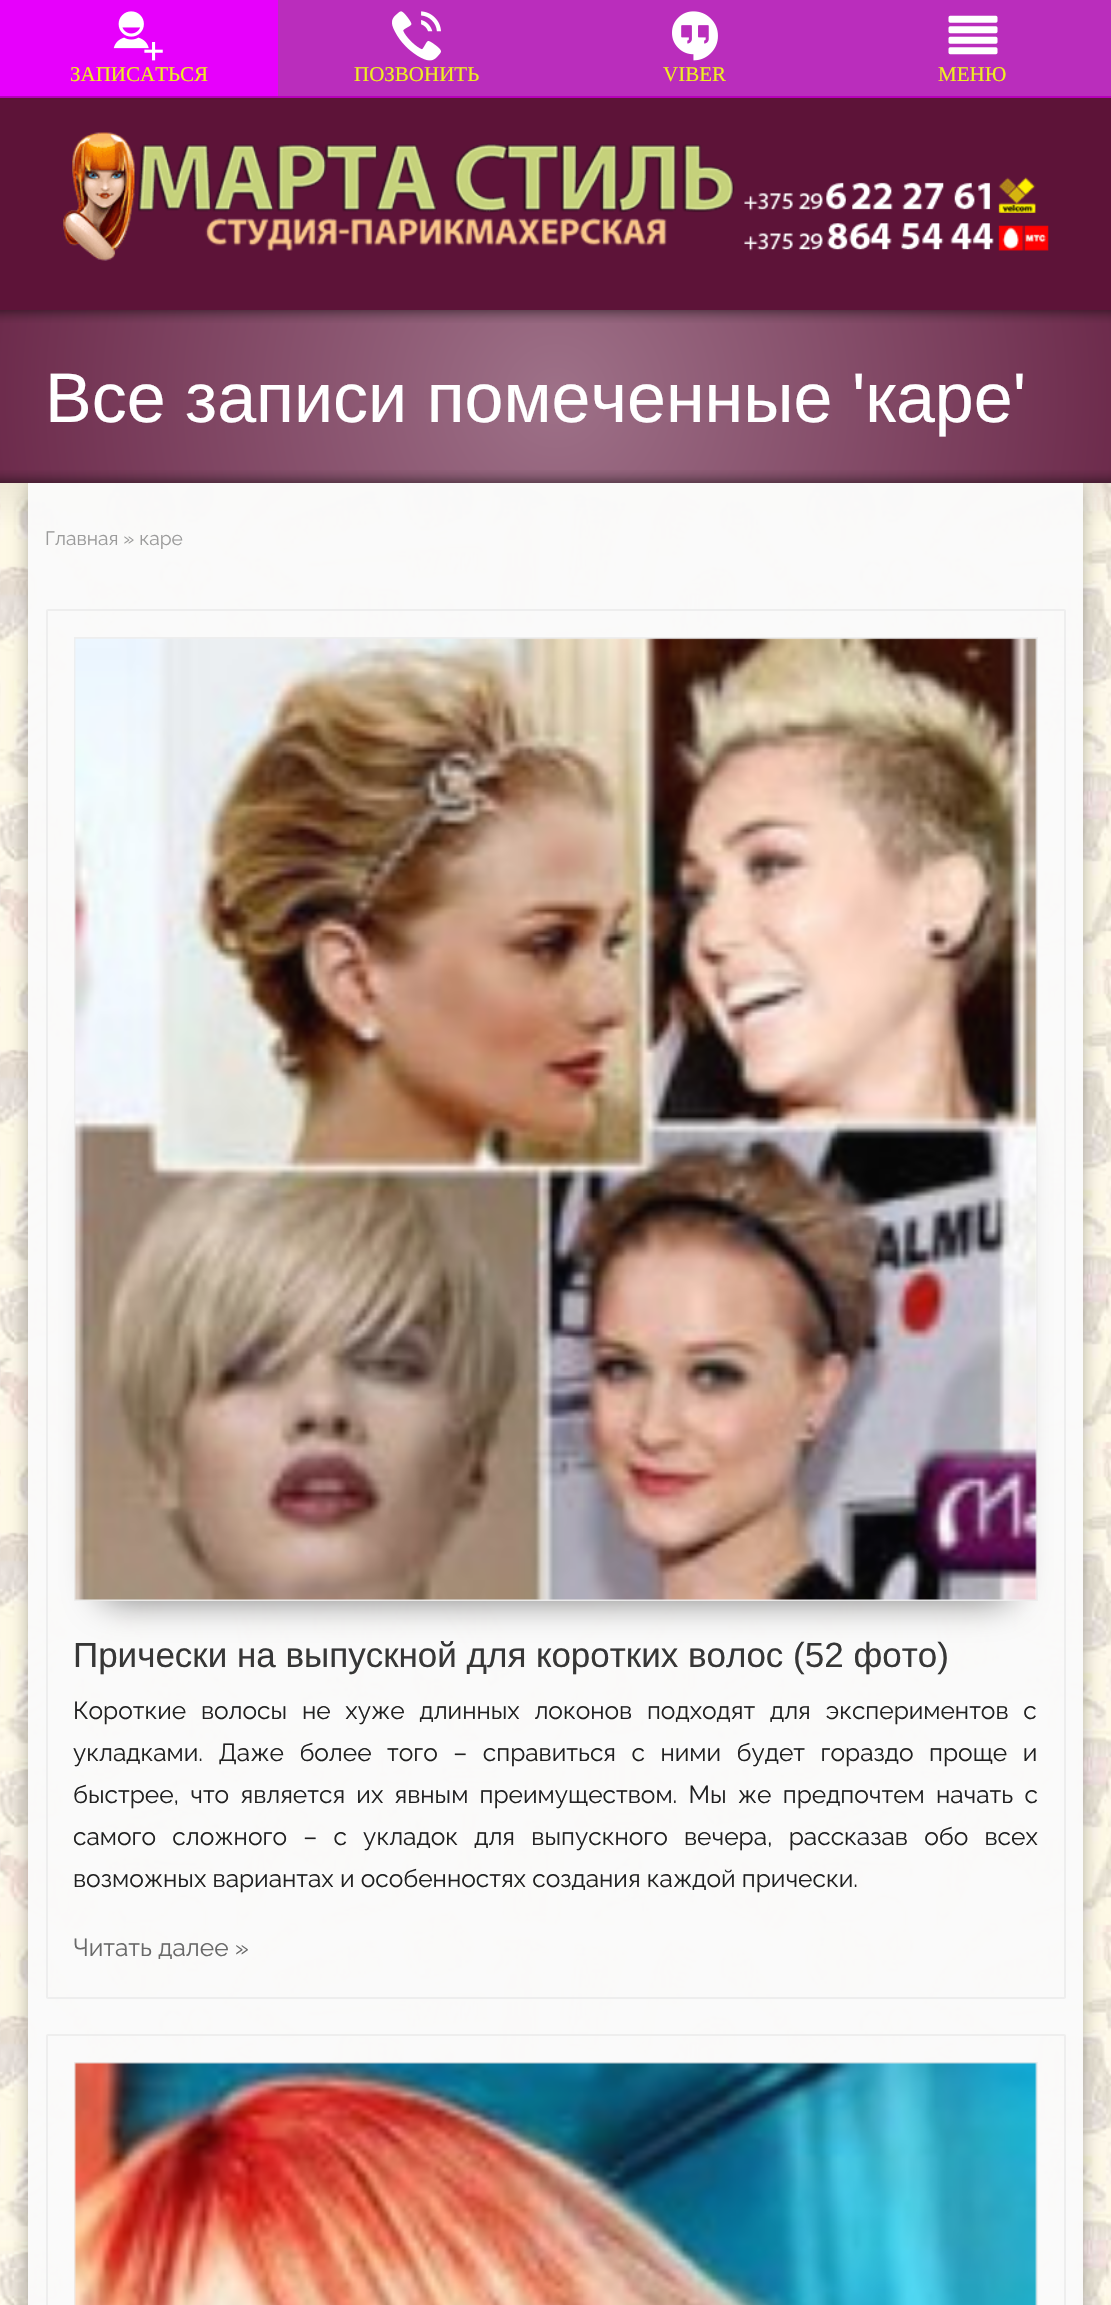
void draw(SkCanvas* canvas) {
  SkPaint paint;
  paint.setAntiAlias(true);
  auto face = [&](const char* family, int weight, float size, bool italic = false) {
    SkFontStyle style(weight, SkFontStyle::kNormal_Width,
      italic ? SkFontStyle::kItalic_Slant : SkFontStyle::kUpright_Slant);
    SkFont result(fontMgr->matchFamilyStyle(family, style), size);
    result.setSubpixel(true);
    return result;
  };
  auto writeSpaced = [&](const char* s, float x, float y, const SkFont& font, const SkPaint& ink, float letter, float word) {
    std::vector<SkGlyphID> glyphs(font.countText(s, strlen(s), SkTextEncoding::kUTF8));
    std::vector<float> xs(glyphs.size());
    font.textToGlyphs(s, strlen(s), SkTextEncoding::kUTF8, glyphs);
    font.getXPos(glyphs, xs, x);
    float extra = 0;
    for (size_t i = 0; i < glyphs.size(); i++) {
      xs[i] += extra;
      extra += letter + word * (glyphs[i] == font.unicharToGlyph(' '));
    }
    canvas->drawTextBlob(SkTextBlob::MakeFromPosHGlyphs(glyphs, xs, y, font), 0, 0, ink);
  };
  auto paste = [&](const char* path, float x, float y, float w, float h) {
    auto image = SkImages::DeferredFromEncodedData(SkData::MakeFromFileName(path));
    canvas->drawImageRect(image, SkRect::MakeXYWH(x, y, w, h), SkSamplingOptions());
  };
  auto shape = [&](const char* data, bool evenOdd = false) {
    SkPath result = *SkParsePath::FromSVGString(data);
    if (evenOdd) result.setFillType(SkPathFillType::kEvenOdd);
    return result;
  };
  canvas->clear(0xffffffff);
  {
    const struct { float x, y, w, h; SkColor color; } items[] = {
      {278, 0, 833, 96, 0xffba2dbc},
      {0, 96, 1111, 2, 0xffb600b9},
      {0, 0, 278, 96, 0xffe700fc},
    };
    for (auto [x, y, w, h, color] : items) {
      paint.setColor(color);
      canvas->drawRect(SkRect::MakeXYWH(x, y, w, h), paint);
    }
  }
  paste("img/1.png", 113, 11, 50, 50);
  paste("img/2.png", 392, 11, 49, 50);
  paste("img/3.png", 672, 11, 46, 50);
  paste("img/4.png", 948, 15, 50, 40);
  paint.setColor(0xff5d1338);
  canvas->drawRect(SkRect::MakeXYWH(0, 98, 1111, 212), paint);
  paste("img/5.png", 63, 132, 986, 129);
  {
    const SkColor colors[] = {0xff9e7188, 0xff6d2b4c};
    const float stops[] = {0, 1};
    paint.setShader(SkGradientShader::MakeRadial({556, 396}, 562, colors, stops, 2, SkTileMode::kClamp));
    paint.setAlpha(255);
  }
  canvas->drawRect(SkRect::MakeXYWH(0, 310, 1111, 173), paint);
  paste("img/6.png", 0, 310, 1111, 13);
  paste("img/7.png", 0, 470, 1111, 13);
  paste("img/8.png", 0, 483, 1111, 1822);
  canvas->save();
  canvas->clipRect(SkRect::MakeXYWH(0, 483, 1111, 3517));
  canvas->clipPath(shape("M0 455H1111V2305H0ZM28 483H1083V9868C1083 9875.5 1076.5 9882 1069 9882H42C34.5 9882 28 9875.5 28 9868Z", true), true);
  paint.setShader(nullptr);
  paint.setColor(0x4a000000);
  paint.setMaskFilter(SkMaskFilter::MakeBlur(kNormal_SkBlurStyle, 9));
  canvas->drawRoundRect(SkRect::MakeXYWH(28, 483, 1055, 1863), 14, 14, paint);
  paint.setMaskFilter(nullptr);
  canvas->restore();
  paint.setStroke(true);
  paint.setStrokeWidth(2);
  paint.setColor(0xfaeeeeee);
  canvas->drawRoundRect(SkRect::MakeXYWH(47, 610, 1018, 1388), 1, 1, paint);
  paste("img/9.png", 535, 1098, 42, 44);
  canvas->save();
  canvas->clipPath(shape("M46 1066H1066V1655H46ZM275 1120H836.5C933 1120 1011.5 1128 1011.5 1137.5V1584C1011.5 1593.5 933 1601 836.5 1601H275C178 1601 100 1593.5 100 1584V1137.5C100 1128 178 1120 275 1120Z", true), true);
  paint.setStroke(false);
  paint.setColor(0x7d000000);
  paint.setMaskFilter(SkMaskFilter::MakeBlur(kNormal_SkBlurStyle, 17.5f));
  canvas->drawRoundRect(SkRect::MakeXYWH(100, 1120, 912, 481), 18, 18, paint);
  paint.setMaskFilter(nullptr);
  canvas->restore();
  paint.setColor(0xfaf9f9f9);
  canvas->drawRect(SkRect::MakeXYWH(76, 1085, 960, 514), paint);
  paste("img/10.png", 535, 1098, 43, 44);
  canvas->drawRect(SkRect::MakeXYWH(535, 1098, 43, 44), paint);
  paint.setStroke(true);
  paint.setColor(0xffeeeeee);
  canvas->drawRect(SkRect::MakeXYWH(75, 638, 962, 962), paint);
  paste("img/11.png", 74, 638, 963, 963);
  paint.setColor(0xfaeeeeee);
  canvas->drawRoundRect(SkRect::MakeXYWH(47, 2035, 1018, 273), 1, 1, paint);
  paint.setColor(0xffeeeeee);
  canvas->drawRect(SkRect::MakeXYWH(75, 2063, 962, 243), paint);
  paste("img/12.png", 74, 2062, 963, 243);
  auto f0 = face("Liberation Serif", 400, 21);
  paint.setStroke(false);
  paint.setColor(0xffeeee22);
  {
    const struct { const char* s; float x, y; } items[] = {
      {"ЗАПИСАТЬСЯ", 70, 81},
      {"ПОЗВОНИТЬ", 354, 81},
      {"VIBER", 663, 81},
      {"МЕНЮ", 938, 81},
    };
    for (auto [s, x, y] : items) {
      canvas->drawString(s, x, y, f0, paint);
    }
  }
  auto f1 = face("Liberation Sans", 400, 70);
  paint.setColor(0xffffffff);
  canvas->drawString("Все записи помеченные 'каре'", 45, 422, f1, paint);
  auto f2 = face("Raleway", 400, 19.25f);
  paint.setColor(0xff9b9b9b);
  canvas->drawString("Главная » каре", 45, 545, f2, paint);
  auto f3 = face("Liberation Sans", 400, 35);
  paint.setColor(0xff373737);
  canvas->drawString("Прически на выпускной для коротких волос (52 фото)", 73, 1667, f3, paint);
  auto f4 = face("Raleway", 400, 24.5f);
  paint.setColor(0xff212121);
  writeSpaced("Короткие волосы не хуже длинных локонов подходят для экспериментов с", 73, 1719, f4, paint, 0, 8.5f);
  writeSpaced("укладками. Даже более того – справиться с ними будет гораздо проще и", 73, 1761, f4, paint, 0, 9.25f);
  writeSpaced("быстрее, что является их явным преимуществом. Мы же предпочтем начать с", 73, 1803, f4, paint, 0, 5);
  writeSpaced("самого сложного – с укладок для выпускного вечера, рассказав обо всех", 73, 1845, f4, paint, 0, 10);
  canvas->drawString("возможных вариантах и особенностях создания каждой прически.", 73, 1887, f4, paint);
  paint.setColor(0xff696969);
  canvas->drawString("Читать далее »", 73, 1956, f4, paint);
}
